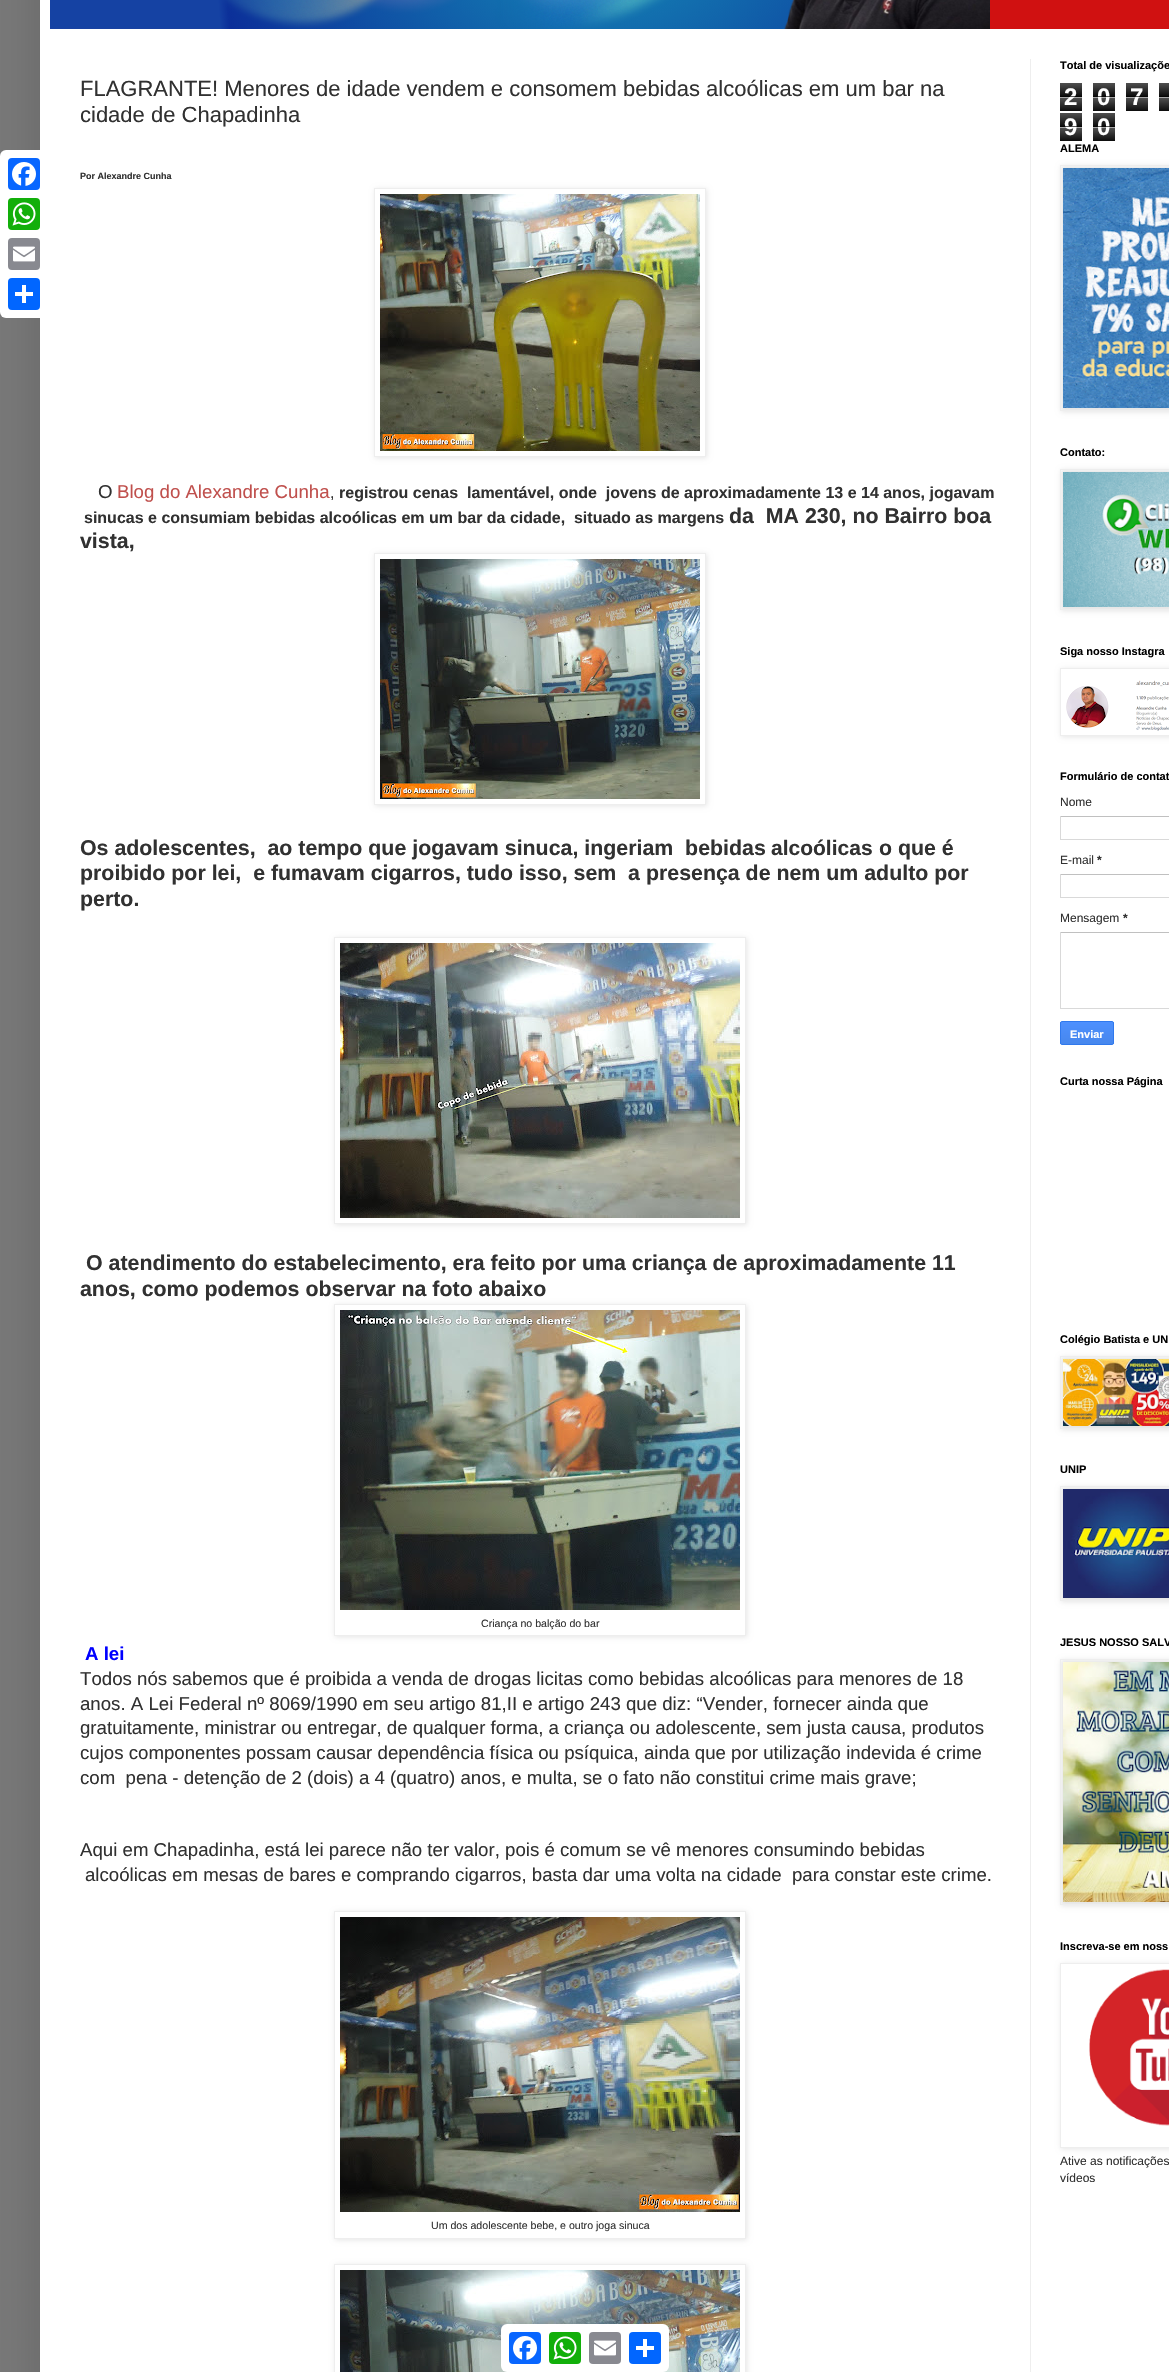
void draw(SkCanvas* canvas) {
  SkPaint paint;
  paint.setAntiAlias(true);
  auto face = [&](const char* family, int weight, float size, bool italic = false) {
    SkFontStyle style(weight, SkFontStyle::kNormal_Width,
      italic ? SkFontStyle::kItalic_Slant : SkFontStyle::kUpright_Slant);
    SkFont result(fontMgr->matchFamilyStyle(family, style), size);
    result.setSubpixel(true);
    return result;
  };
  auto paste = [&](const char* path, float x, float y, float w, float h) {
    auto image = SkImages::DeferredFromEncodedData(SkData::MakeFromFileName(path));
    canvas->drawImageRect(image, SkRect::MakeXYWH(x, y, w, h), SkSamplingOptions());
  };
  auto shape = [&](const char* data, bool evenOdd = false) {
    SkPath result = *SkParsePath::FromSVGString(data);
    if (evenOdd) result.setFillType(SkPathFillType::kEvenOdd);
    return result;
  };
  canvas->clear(0xff787878);
  paint.setColor(0x26000000);
  paint.setMaskFilter(SkMaskFilter::MakeBlur(kNormal_SkBlurStyle, 20));
  canvas->drawRect(SkRect::MakeXYWH(40, -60, 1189, 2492), paint);
  paint.setMaskFilter(nullptr);
  paint.setColor(0xffffffff);
  canvas->drawRect(SkRect::MakeXYWH(40, 0, 1129, 2372), paint);
  paint.setColor(0xffd01111);
  canvas->drawRect(SkRect::MakeXYWH(50, 0, 1119, 29), paint);
  paste("img/1.png", 50, 0, 940, 29);
  paint.setColor(0xffeeeeee);
  canvas->drawRect(SkRect::MakeXYWH(1030, 59, 1, 2313), paint);
  canvas->save();
  canvas->clipPath(shape("M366 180H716V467H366ZM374 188H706V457H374Z", true), true);
  paint.setColor(0x1a000000);
  paint.setMaskFilter(SkMaskFilter::MakeBlur(kNormal_SkBlurStyle, 2.5f));
  canvas->drawRect(SkRect::MakeXYWH(375, 189, 332, 269), paint);
  paint.setMaskFilter(nullptr);
  canvas->restore();
  paint.setStroke(true);
  paint.setStrokeWidth(1);
  paint.setColor(0xffeeeeee);
  canvas->drawRect(SkRect::MakeXYWH(374.5f, 188.5f, 331, 268), paint);
  paste("img/2.png", 380, 194, 320, 257);
  canvas->save();
  canvas->clipPath(shape("M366 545H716V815H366ZM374 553H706V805H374Z", true), true);
  paint.setStroke(false);
  paint.setColor(0x1a000000);
  paint.setMaskFilter(SkMaskFilter::MakeBlur(kNormal_SkBlurStyle, 2.5f));
  canvas->drawRect(SkRect::MakeXYWH(375, 554, 332, 252), paint);
  paint.setMaskFilter(nullptr);
  canvas->restore();
  paint.setStroke(true);
  paint.setColor(0xffeeeeee);
  canvas->drawRect(SkRect::MakeXYWH(374.5f, 553.5f, 331, 251), paint);
  paste("img/3.png", 380, 559, 320, 240);
  canvas->save();
  canvas->clipPath(shape("M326 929H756V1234H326ZM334 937H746V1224H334Z", true), true);
  paint.setStroke(false);
  paint.setColor(0x1a000000);
  paint.setMaskFilter(SkMaskFilter::MakeBlur(kNormal_SkBlurStyle, 2.5f));
  canvas->drawRect(SkRect::MakeXYWH(335, 938, 412, 287), paint);
  paint.setMaskFilter(nullptr);
  canvas->restore();
  paint.setStroke(true);
  paint.setColor(0xffeeeeee);
  canvas->drawRect(SkRect::MakeXYWH(334.5f, 937.5f, 411, 286), paint);
  paste("img/4.png", 340, 943, 400, 275);
  canvas->save();
  canvas->clipPath(shape("M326 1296H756V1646H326ZM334 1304H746V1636H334Z", true), true);
  paint.setStroke(false);
  paint.setColor(0x1a000000);
  paint.setMaskFilter(SkMaskFilter::MakeBlur(kNormal_SkBlurStyle, 2.5f));
  canvas->drawRect(SkRect::MakeXYWH(335, 1305, 412, 332), paint);
  paint.setMaskFilter(nullptr);
  canvas->restore();
  paint.setStroke(true);
  paint.setColor(0xffeeeeee);
  canvas->drawRect(SkRect::MakeXYWH(334.5f, 1304.5f, 411, 331), paint);
  paste("img/5.png", 340, 1310, 400, 300);
  canvas->save();
  canvas->clipPath(shape("M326 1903H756V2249H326ZM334 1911H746V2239H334Z", true), true);
  paint.setStroke(false);
  paint.setColor(0x1a000000);
  paint.setMaskFilter(SkMaskFilter::MakeBlur(kNormal_SkBlurStyle, 2.5f));
  canvas->drawRect(SkRect::MakeXYWH(335, 1912, 412, 328), paint);
  paint.setMaskFilter(nullptr);
  canvas->restore();
  paint.setStroke(true);
  paint.setColor(0xffeeeeee);
  canvas->drawRect(SkRect::MakeXYWH(334.5f, 1911.5f, 411, 327), paint);
  paste("img/6.png", 340, 1917, 400, 295);
  canvas->save();
  canvas->clipPath(shape("M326 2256H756V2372H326ZM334 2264H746V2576H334Z", true), true);
  paint.setStroke(false);
  paint.setColor(0x1a000000);
  paint.setMaskFilter(SkMaskFilter::MakeBlur(kNormal_SkBlurStyle, 2.5f));
  canvas->drawRect(SkRect::MakeXYWH(335, 2265, 412, 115), paint);
  paint.setMaskFilter(nullptr);
  canvas->restore();
  paint.setStroke(true);
  paint.setColor(0xffeeeeee);
  canvas->drawRect(SkRect::MakeXYWH(334.5f, 2264.5f, 411, 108), paint);
  paste("img/7.png", 340, 2270, 400, 102);
  paste("img/8.png", 1060, 83, 22, 28);
  paste("img/8.png", 1093, 83, 22, 28);
  paste("img/8.png", 1126, 83, 22, 28);
  paste("img/9.png", 1159, 83, 10, 28);
  paint.setStroke(false);
  paint.setColor(0xa6000000);
  canvas->drawRect(SkRect::MakeXYWH(1159, 96, 10, 1), paint);
  paint.setColor(0xa6ffffff);
  canvas->drawRect(SkRect::MakeXYWH(1159, 97, 10, 1), paint);
  paste("img/8.png", 1060, 113, 22, 28);
  paste("img/8.png", 1093, 113, 22, 28);
  paint.setColor(0x1a000000);
  paint.setMaskFilter(SkMaskFilter::MakeBlur(kNormal_SkBlurStyle, 2.5f));
  canvas->drawRect(SkRect::MakeXYWH(1061, 166, 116, 246), paint);
  paint.setMaskFilter(nullptr);
  paint.setStroke(true);
  paint.setColor(0xffeeeeee);
  canvas->drawRect(SkRect::MakeXYWH(1060.5f, 165.5f, 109, 245), paint);
  paste("img/10.png", 1063, 168, 106, 240);
  paint.setStroke(false);
  paint.setColor(0xffffffff);
  canvas->drawRoundRect(SkRect::MakeXYWH(0, 150, 48, 168), 6, 6, paint);
  paint.setColor(0xff0866ff);
  canvas->drawRoundRect(SkRect::MakeXYWH(8, 158, 32, 32), 4, 4, paint);
  paste("img/11.png", 12, 162, 24, 24);
  paint.setColor(0xff12af0a);
  canvas->drawRoundRect(SkRect::MakeXYWH(8, 198, 32, 32), 4, 4, paint);
  paste("img/12.png", 12, 202, 24, 24);
  paint.setColor(0xff888990);
  canvas->drawRoundRect(SkRect::MakeXYWH(8, 238, 32, 32), 4, 4, paint);
  paste("img/13.png", 13, 246, 22, 16);
  paint.setColor(0xff0166ff);
  canvas->drawRoundRect(SkRect::MakeXYWH(8, 278, 32, 32), 4, 4, paint);
  paint.setColor(0xffffffff);
  canvas->drawRect(SkRect::MakeXYWH(22, 285, 4, 18), paint);
  canvas->drawRect(SkRect::MakeXYWH(15, 292, 18, 4), paint);
  paint.setColor(0x1a000000);
  paint.setMaskFilter(SkMaskFilter::MakeBlur(kNormal_SkBlurStyle, 2.5f));
  canvas->drawRect(SkRect::MakeXYWH(1061, 470, 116, 141), paint);
  paint.setMaskFilter(nullptr);
  paint.setStroke(true);
  paint.setColor(0xffeeeeee);
  canvas->drawRect(SkRect::MakeXYWH(1060.5f, 469.5f, 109, 140), paint);
  paste("img/14.png", 1063, 472, 106, 135);
  canvas->save();
  canvas->clipPath(shape("M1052 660H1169V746H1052ZM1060 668H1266V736H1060Z", true), true);
  paint.setStroke(false);
  paint.setColor(0x1a000000);
  paint.setMaskFilter(SkMaskFilter::MakeBlur(kNormal_SkBlurStyle, 2.5f));
  canvas->drawRect(SkRect::MakeXYWH(1061, 669, 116, 68), paint);
  paint.setMaskFilter(nullptr);
  canvas->restore();
  paint.setStroke(true);
  paint.setColor(0xffeeeeee);
  canvas->drawRect(SkRect::MakeXYWH(1060.5f, 668.5f, 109, 67), paint);
  paste("img/15.png", 1066, 680, 103, 51);
  paint.setStroke(false);
  {
    const struct { float x, y, w, h; SkColor color; } items[] = {
      {1060, 816, 109, 1, 0xffc0c0c0},
      {1060, 839, 109, 1, 0xffd9d9d9},
      {1060, 816, 1, 24, 0xffd9d9d9},
      {1060, 874, 109, 1, 0xffc0c0c0},
      {1060, 897, 109, 1, 0xffd9d9d9},
      {1060, 874, 1, 24, 0xffd9d9d9},
      {1060, 932, 109, 1, 0xffc0c0c0},
      {1060, 1008, 109, 1, 0xffd9d9d9},
      {1060, 932, 1, 77, 0xffd9d9d9},
    };
    for (auto [x, y, w, h, color] : items) {
      paint.setColor(color);
      canvas->drawRect(SkRect::MakeXYWH(x, y, w, h), paint);
    }
  }
  canvas->save();
  canvas->clipPath(shape("M1062 1021H1112C1113 1021 1114 1022 1114 1023V1043C1114 1044 1113 1045 1112 1045H1062C1061 1045 1060 1044 1060 1043V1023C1060 1022 1061 1021 1062 1021Z"), true);
  {
    const SkColor colors[] = {0xff4d90fe, 0xff4787ed};
    const float stops[] = {0, 1};
    const SkPoint ends[] = {{1087, 1022}, {1087, 1044}};
    paint.setShader(SkGradientShader::MakeLinear(ends, colors, stops, 2, SkTileMode::kClamp));
    paint.setAlpha(255);
  }
  canvas->drawRect(SkRect::MakeXYWH(1060, 1022, 54, 22), paint);
  canvas->restore();
  paint.setStroke(true);
  paint.setShader(nullptr);
  paint.setColor(0xff3079ed);
  canvas->drawRoundRect(SkRect::MakeXYWH(1060.5f, 1021.5f, 53, 23), 1.5f, 1.5f, paint);
  paint.setStroke(false);
  paint.setColor(0x1a000000);
  paint.setMaskFilter(SkMaskFilter::MakeBlur(kNormal_SkBlurStyle, 2.5f));
  canvas->drawRect(SkRect::MakeXYWH(1061, 1357, 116, 73), paint);
  paint.setMaskFilter(nullptr);
  paint.setStroke(true);
  paint.setColor(0xffeeeeee);
  canvas->drawRect(SkRect::MakeXYWH(1060.5f, 1356.5f, 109, 72), paint);
  paste("img/16.png", 1063, 1359, 106, 67);
  paint.setStroke(false);
  paint.setColor(0x1a000000);
  paint.setMaskFilter(SkMaskFilter::MakeBlur(kNormal_SkBlurStyle, 2.5f));
  canvas->drawRect(SkRect::MakeXYWH(1061, 1487, 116, 115), paint);
  paint.setMaskFilter(nullptr);
  paint.setStroke(true);
  paint.setColor(0xffeeeeee);
  canvas->drawRect(SkRect::MakeXYWH(1060.5f, 1486.5f, 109, 114), paint);
  paste("img/17.png", 1063, 1489, 106, 109);
  paint.setStroke(false);
  paint.setColor(0x1a000000);
  paint.setMaskFilter(SkMaskFilter::MakeBlur(kNormal_SkBlurStyle, 2.5f));
  canvas->drawRect(SkRect::MakeXYWH(1061, 1660, 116, 246), paint);
  paint.setMaskFilter(nullptr);
  paint.setStroke(true);
  paint.setColor(0xffeeeeee);
  canvas->drawRect(SkRect::MakeXYWH(1060.5f, 1659.5f, 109, 245), paint);
  paste("img/18.png", 1063, 1662, 106, 240);
  canvas->save();
  canvas->clipPath(shape("M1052 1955H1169V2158H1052ZM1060 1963H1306V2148H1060Z", true), true);
  paint.setStroke(false);
  paint.setColor(0x1a000000);
  paint.setMaskFilter(SkMaskFilter::MakeBlur(kNormal_SkBlurStyle, 2.5f));
  canvas->drawRect(SkRect::MakeXYWH(1061, 1964, 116, 185), paint);
  paint.setMaskFilter(nullptr);
  canvas->restore();
  paint.setStroke(true);
  paint.setColor(0xffeeeeee);
  canvas->drawRect(SkRect::MakeXYWH(1060.5f, 1963.5f, 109, 184), paint);
  paste("img/19.png", 1089, 1969, 80, 157);
  paint.setStroke(false);
  paint.setColor(0xffffffff);
  canvas->drawRoundRect(SkRect::MakeXYWH(501, 2324, 168, 48), 6, 6, paint);
  paint.setColor(0xff0866ff);
  canvas->drawRoundRect(SkRect::MakeXYWH(509, 2332, 32, 32), 4, 4, paint);
  paste("img/11.png", 513, 2336, 24, 24);
  paint.setColor(0xff12af0a);
  canvas->drawRoundRect(SkRect::MakeXYWH(549, 2332, 32, 32), 4, 4, paint);
  paste("img/12.png", 553, 2336, 24, 24);
  paint.setColor(0xff888990);
  canvas->drawRoundRect(SkRect::MakeXYWH(589, 2332, 32, 32), 4, 4, paint);
  paste("img/13.png", 594, 2340, 22, 16);
  paint.setColor(0xff0166ff);
  canvas->drawRoundRect(SkRect::MakeXYWH(629, 2332, 32, 32), 4, 4, paint);
  paint.setColor(0xffffffff);
  canvas->drawRect(SkRect::MakeXYWH(643, 2339, 4, 18), paint);
  canvas->drawRect(SkRect::MakeXYWH(636, 2346, 18, 4), paint);
  auto f0 = face("Liberation Sans", 400, 22);
  paint.setColor(0xff313131);
  canvas->drawString("FLAGRANTE! Menores de idade vendem e consomem bebidas alcoólicas em um bar na", 80, 96, f0, paint);
  canvas->drawString("cidade de Chapadinha", 80, 122, f0, paint);
  auto f1 = face("Liberation Sans", 700, 9);
  canvas->drawString("Por Alexandre Cunha", 80, 179, f1, paint);
  auto f2 = face("Liberation Sans", 400, 18.65f);
  canvas->drawString("O", 98, 498, f2, paint);
  paint.setColor(0xffc0504d);
  canvas->drawString("Blog do Alexandre Cunha", 117, 498, f2, paint);
  auto f3 = face("Liberation Sans", 400, 16);
  paint.setColor(0xff313131);
  canvas->drawString(",", 330, 498, f3, paint);
  auto f4 = face("Liberation Sans", 700, 16);
  canvas->drawString("registrou cenas  lamentável, onde  jovens de aproximadamente 13 e 14 anos, jogavam", 339, 498, f4, paint);
  canvas->drawString("sinucas e consumiam bebidas alcoólicas em um bar da cidade,  situado as margens", 84, 523, f4, paint);
  auto f5 = face("Liberation Sans", 700, 21.35f);
  {
    const struct { const char* s; float x, y; } items[] = {
      {"da  MA 230, no Bairro boa", 729, 523},
      {"vista,", 80, 548},
      {"Os adolescentes,  ao tempo que jogavam sinuca, ingeriam  bebidas", 80, 855},
    };
    for (auto [s, x, y] : items) {
      canvas->drawString(s, x, y, f5, paint);
    }
  }
  auto f6 = face("Liberation Sans", 700, 21);
  canvas->drawString("alcoólicas", 771, 855, f6, paint);
  {
    const struct { const char* s; float x, y; } items[] = {
      {"o que é", 879, 855},
      {"proibido por lei,  e fumavam cigarros, tudo isso, sem  a presença de nem um adulto por", 80, 880},
      {"perto.", 80, 906},
      {"O atendimento do estabelecimento, era feito por uma criança de aproximadamente 11", 86, 1270},
      {"anos, como podemos observar na foto abaixo", 80, 1296},
    };
    for (auto [s, x, y] : items) {
      canvas->drawString(s, x, y, f5, paint);
    }
  }
  auto f7 = face("Liberation Sans", 400, 10.6f);
  canvas->drawString("Criança no balção do bar", 481, 1627, f7, paint);
  auto f8 = face("Liberation Sans", 700, 18.65f);
  paint.setColor(0xff0000ff);
  canvas->drawString("A lei", 85, 1660, f8, paint);
  paint.setColor(0xff313131);
  {
    const struct { const char* s; float x, y; } items[] = {
      {"Todos nós sabemos que é proibida a venda de drogas licitas como bebidas alcoólicas para menores de 18", 80, 1685},
      {"anos. A Lei Federal nº 8069/1990 em seu artigo 81,II e artigo 243 que diz: “Vender, fornecer ainda que", 80, 1710},
      {"gratuitamente, ministrar ou entregar, de qualquer forma, a criança ou adolescente, sem justa causa, produtos", 80, 1734},
      {"cujos componentes possam causar dependência física ou psíquica, ainda que por utilização indevida é crime", 80, 1759},
      {"com  pena - detenção de 2 (dois) a 4 (quatro) anos, e multa, se o fato não constitui crime mais grave;", 80, 1784},
      {"Aqui em Chapadinha, está lei parece não ter valor, pois é comum se vê menores consumindo bebidas", 80, 1856},
      {"alcoólicas em mesas de bares e comprando cigarros, basta dar uma volta na cidade  para constar este crime.", 85, 1881},
    };
    for (auto [s, x, y] : items) {
      canvas->drawString(s, x, y, f2, paint);
    }
  }
  canvas->drawString("Um dos adolescente bebe, e outro joga sinuca", 431, 2229, f7, paint);
  auto f9 = face("Liberation Sans", 700, 11);
  paint.setColor(0xff000000);
  canvas->drawString("Total de visualizaçõe", 1060, 69, f9, paint);
  auto f10 = face("Liberation Sans", 700, 24);
  paint.setColor(0xffffffff);
  canvas->drawString("2", 1064, 105, f10, paint);
  paint.setColor(0xa6000000);
  canvas->drawRect(SkRect::MakeXYWH(1060, 96, 22, 1), paint);
  paint.setColor(0xa6ffffff);
  canvas->drawRect(SkRect::MakeXYWH(1060, 97, 22, 1), paint);
  paint.setColor(0xffffffff);
  canvas->drawString("0", 1097, 105, f10, paint);
  paint.setColor(0xa6000000);
  canvas->drawRect(SkRect::MakeXYWH(1093, 96, 22, 1), paint);
  paint.setColor(0xa6ffffff);
  canvas->drawRect(SkRect::MakeXYWH(1093, 97, 22, 1), paint);
  paint.setColor(0xffffffff);
  canvas->drawString("7", 1130, 105, f10, paint);
  paint.setColor(0xa6000000);
  canvas->drawRect(SkRect::MakeXYWH(1126, 96, 22, 1), paint);
  paint.setColor(0xa6ffffff);
  canvas->drawRect(SkRect::MakeXYWH(1126, 97, 22, 1), paint);
  paint.setColor(0xffffffff);
  canvas->drawString("9", 1064, 135, f10, paint);
  paint.setColor(0xa6000000);
  canvas->drawRect(SkRect::MakeXYWH(1060, 126, 22, 1), paint);
  paint.setColor(0xa6ffffff);
  canvas->drawRect(SkRect::MakeXYWH(1060, 127, 22, 1), paint);
  paint.setColor(0xffffffff);
  canvas->drawString("0", 1097, 135, f10, paint);
  paint.setColor(0xa6000000);
  canvas->drawRect(SkRect::MakeXYWH(1093, 126, 22, 1), paint);
  paint.setColor(0xa6ffffff);
  canvas->drawRect(SkRect::MakeXYWH(1093, 127, 22, 1), paint);
  paint.setColor(0xff000000);
  {
    const struct { const char* s; float x, y; } items[] = {
      {"ALEMA", 1060, 152},
      {"Contato:", 1060, 456},
      {"Siga nosso Instagra", 1060, 655},
      {"Formulário de contat", 1060, 780},
    };
    for (auto [s, x, y] : items) {
      canvas->drawString(s, x, y, f9, paint);
    }
  }
  auto f11 = face("Liberation Sans", 400, 12);
  paint.setColor(0xff313131);
  canvas->drawString("Nome", 1060, 806, f11, paint);
  canvas->drawString("E-mail", 1060, 864, f11, paint);
  auto f12 = face("Liberation Sans", 700, 12);
  canvas->drawString("*", 1097, 864, f12, paint);
  canvas->drawString("Mensagem", 1060, 922, f11, paint);
  canvas->drawString("*", 1123, 922, f12, paint);
  paint.setColor(0xffffffff);
  canvas->drawString("Enviar", 1070, 1038, f9, paint);
  paint.setColor(0xff000000);
  {
    const struct { const char* s; float x, y; } items[] = {
      {"Curta nossa Página", 1060, 1085},
      {"Colégio Batista e UN", 1060, 1343},
      {"UNIP", 1060, 1473},
      {"JESUS NOSSO SALV", 1060, 1646},
      {"Inscreva-se em noss", 1060, 1950},
    };
    for (auto [s, x, y] : items) {
      canvas->drawString(s, x, y, f9, paint);
    }
  }
  paint.setColor(0xff313131);
  canvas->drawString("Ative as notificações", 1060, 2165, f11, paint);
  canvas->drawString("vídeos", 1060, 2182, f11, paint);
}
